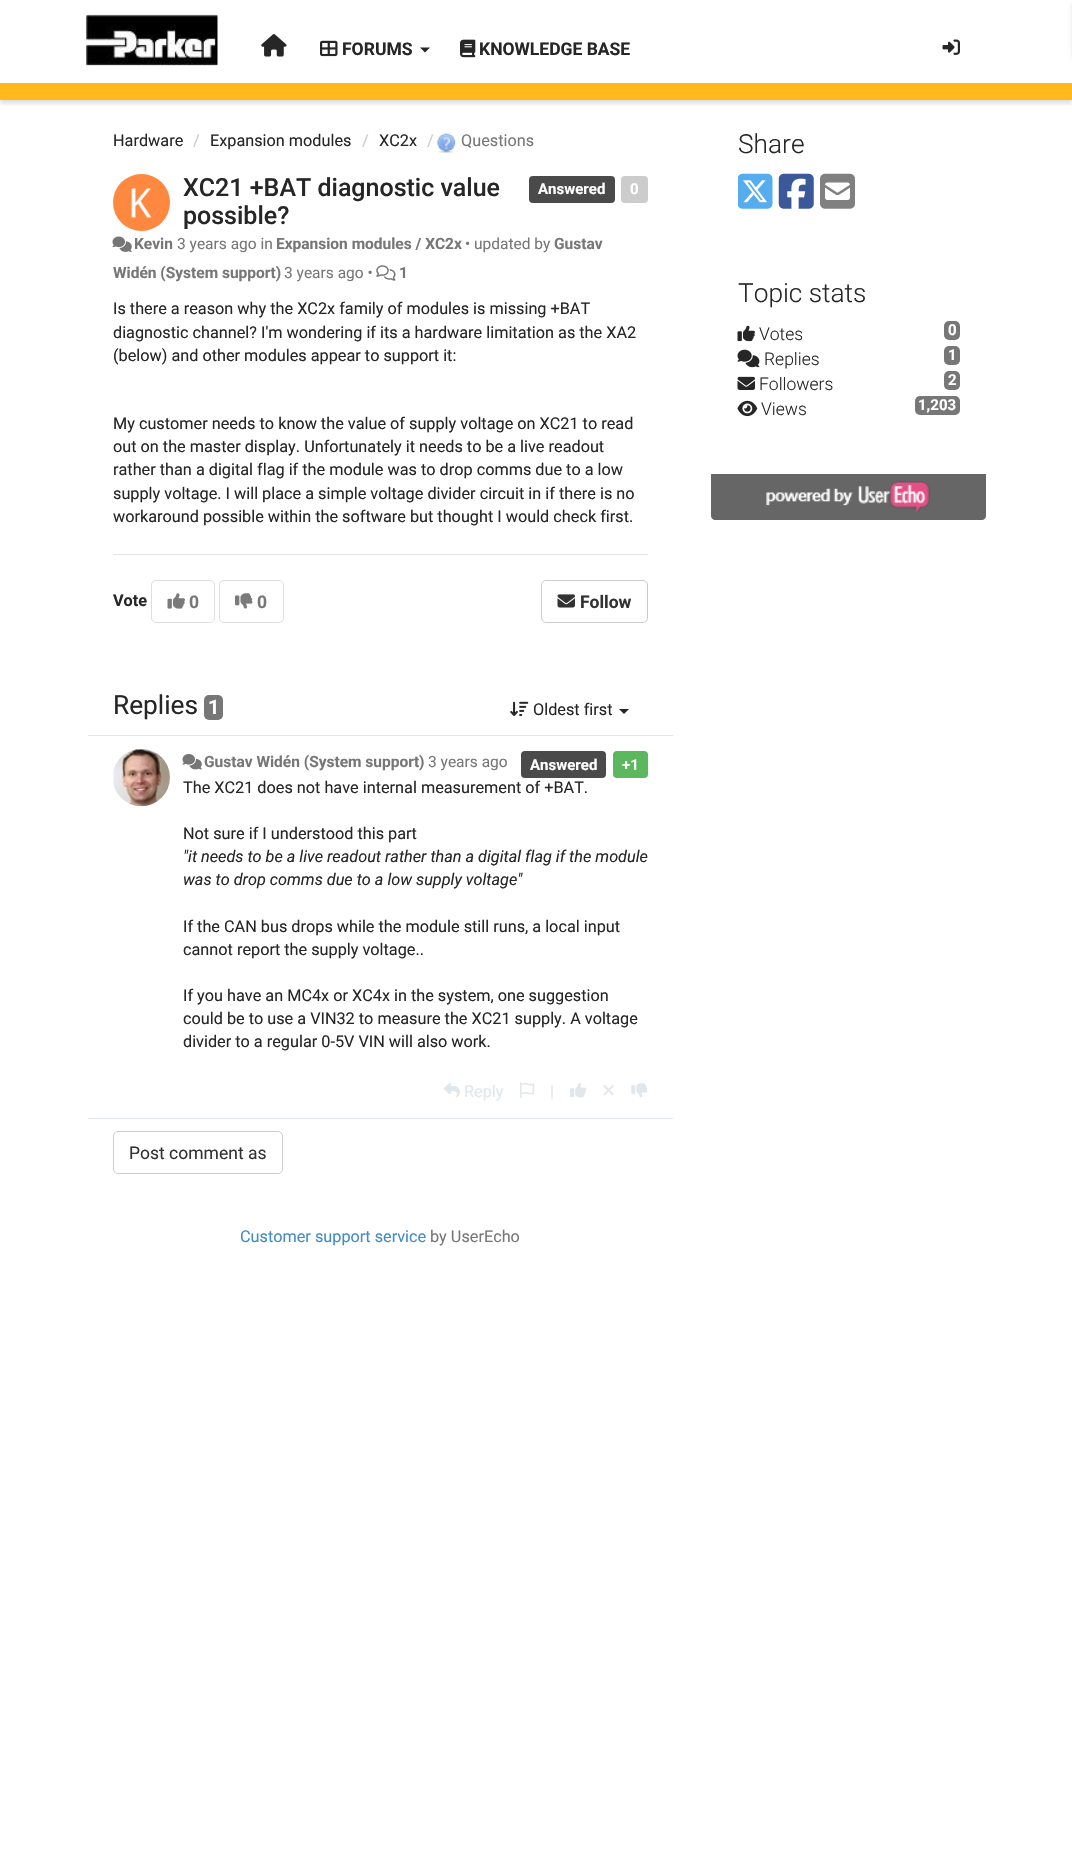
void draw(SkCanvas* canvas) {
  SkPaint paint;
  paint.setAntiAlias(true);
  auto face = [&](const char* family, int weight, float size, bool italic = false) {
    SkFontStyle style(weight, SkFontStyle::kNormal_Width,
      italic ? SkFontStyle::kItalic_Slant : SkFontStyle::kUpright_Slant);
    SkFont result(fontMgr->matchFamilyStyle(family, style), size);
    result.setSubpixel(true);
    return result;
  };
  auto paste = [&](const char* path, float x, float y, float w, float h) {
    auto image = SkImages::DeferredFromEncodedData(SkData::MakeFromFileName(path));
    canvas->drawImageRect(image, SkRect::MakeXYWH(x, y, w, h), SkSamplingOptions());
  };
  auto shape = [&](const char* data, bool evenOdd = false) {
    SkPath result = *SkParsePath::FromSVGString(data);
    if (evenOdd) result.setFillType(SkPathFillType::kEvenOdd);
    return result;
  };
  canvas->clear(0xffffffff);
  canvas->save();
  canvas->clipRect(SkRect::MakeXYWH(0, 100, 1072, 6));
  paint.setColor(0x26000000);
  paint.setMaskFilter(SkMaskFilter::MakeBlur(kNormal_SkBlurStyle, 2.5f));
  canvas->drawRect(SkRect::MakeXYWH(0, 3, 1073, 100), paint);
  paint.setMaskFilter(nullptr);
  canvas->restore();
  paint.setColor(0xffffb91d);
  canvas->drawRect(SkRect::MakeXYWH(0, 83, 1072, 17), paint);
  paste("img/1.png", 86, 14, 132, 52);
  paste("img/2.png", 261, 34, 26, 23);
  paste("img/3.png", 320, 40, 18, 17);
  paint.setColor(0xff262626);
  canvas->drawPath(shape("M420 47.5H430L425 52.5Z"), paint);
  paste("img/4.png", 460, 39, 16, 19);
  paste("img/5.png", 942, 39, 18, 16);
  paint.setColor(0x26000000);
  paint.setMaskFilter(SkMaskFilter::MakeBlur(kNormal_SkBlurStyle, 2.5f));
  canvas->drawRect(SkRect::MakeXYWH(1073, 3, 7, 55), paint);
  paint.setMaskFilter(nullptr);
  paste("img/6.png", 437, 133, 19, 20);
  paint.setColor(0xffff8841);
  canvas->drawCircle(141.5f, 202.5f, 28.5f, paint);
  paste("img/7.png", 131, 188, 21, 30);
  paint.setColor(0xff4a4a4a);
  canvas->drawRoundRect(SkRect::MakeXYWH(529, 176, 86, 27), 4, 4, paint);
  paint.setColor(0xffcccccc);
  canvas->drawRoundRect(SkRect::MakeXYWH(621, 176, 27, 27), 4, 4, paint);
  paste("img/8.png", 112, 236, 20, 16);
  paste("img/9.png", 376, 265, 20, 16);
  paint.setColor(0xffe5e5e5);
  canvas->drawRect(SkRect::MakeXYWH(113, 554, 535, 1), paint);
  paint.setStroke(true);
  paint.setStrokeWidth(1);
  paint.setColor(0xffdedede);
  canvas->drawRoundRect(SkRect::MakeXYWH(151.5f, 580.5f, 63, 42), 4.5f, 4.5f, paint);
  paste("img/10.png", 167, 593, 18, 16);
  canvas->drawRoundRect(SkRect::MakeXYWH(219.5f, 580.5f, 64, 42), 4.5f, 4.5f, paint);
  paste("img/11.png", 235, 593, 18, 16);
  paint.setColor(0xffcccccc);
  canvas->drawRoundRect(SkRect::MakeXYWH(541.5f, 580.5f, 106, 42), 4.5f, 4.5f, paint);
  paste("img/12.png", 557, 594, 18, 14);
  paint.setStroke(false);
  paint.setColor(0xff777777);
  canvas->drawRoundRect(SkRect::MakeXYWH(204, 695, 19, 25), 5, 5, paint);
  paste("img/13.png", 510, 701, 19, 15);
  paint.setColor(0xff262626);
  canvas->drawPath(shape("M619 709H629L624 714Z"), paint);
  paint.setColor(0xffe1e8ed);
  canvas->drawRect(SkRect::MakeXYWH(88, 735, 585, 1), paint);
  canvas->drawRect(SkRect::MakeXYWH(88, 1118, 585, 1), paint);
  paste("img/14.png", 113, 748, 57, 59);
  paste("img/15.png", 182, 754, 20, 16);
  paint.setColor(0xff4a4a4a);
  canvas->drawRoundRect(SkRect::MakeXYWH(521, 751, 85, 27), 4, 4, paint);
  paint.setColor(0xff5cb85c);
  canvas->drawRoundRect(SkRect::MakeXYWH(613, 751, 35, 27), 4, 4, paint);
  paste("img/16.png", 443, 1083, 17, 15);
  paste("img/17.png", 520, 1082, 15, 17);
  paste("img/18.png", 570, 1083, 17, 15);
  paste("img/19.png", 603, 1085, 11, 11);
  paste("img/20.png", 631, 1083, 17, 15);
  paint.setStroke(true);
  paint.setColor(0xffcccccc);
  canvas->drawRoundRect(SkRect::MakeXYWH(113.5f, 1131.5f, 169, 42), 4.5f, 4.5f, paint);
  paste("img/21.png", 738, 173, 35, 36);
  paste("img/22.png", 778, 173, 36, 36);
  paste("img/23.png", 820, 173, 35, 36);
  paste("img/24.png", 737, 325, 18, 17);
  paint.setStroke(false);
  paint.setColor(0xff777777);
  canvas->drawRoundRect(SkRect::MakeXYWH(944, 321, 16, 19), 5, 5, paint);
  paste("img/25.png", 737, 349, 23, 19);
  canvas->drawRoundRect(SkRect::MakeXYWH(944, 346, 16, 19), 5, 5, paint);
  paste("img/26.png", 737, 376, 18, 14);
  canvas->drawRoundRect(SkRect::MakeXYWH(944, 371, 16, 19), 5, 5, paint);
  paste("img/27.png", 737, 400, 21, 17);
  canvas->drawRoundRect(SkRect::MakeXYWH(915, 396, 45, 19), 5, 5, paint);
  paint.setColor(0xff666666);
  canvas->drawPath(shape("M711 474H986V516C986 518 984 520 982 520H715C713 520 711 518 711 516Z"), paint);
  paste("img/28.png", 766, 481, 164, 32);
  auto f0 = face("Roboto", 700, 17.5f);
  paint.setColor(0xff262626);
  canvas->drawString("FORUMS", 342, 55, f0, paint);
  canvas->drawString("KNOWLEDGE BASE", 479, 55, f0, paint);
  auto f1 = face("Roboto", 400, 16.25f);
  canvas->drawString("Hardware", 113, 146, f1, paint);
  paint.setColor(0xffcccccc);
  canvas->drawString("/", 193, 146, f1, paint);
  paint.setColor(0xff262626);
  canvas->drawString("Expansion modules", 210, 146, f1, paint);
  paint.setColor(0xffcccccc);
  canvas->drawString("/", 362, 146, f1, paint);
  paint.setColor(0xff262626);
  canvas->drawString("XC2x", 379, 146, f1, paint);
  paint.setColor(0xffcccccc);
  canvas->drawString("/", 427, 146, f1, paint);
  paint.setColor(0xff777777);
  canvas->drawString("Questions", 461, 146, f1, paint);
  auto f2 = face("Roboto", 500, 25);
  paint.setColor(0xff262626);
  canvas->drawString("XC21 +BAT diagnostic value", 183, 196, f2, paint);
  canvas->drawString("possible?", 183, 224, f2, paint);
  auto f3 = face("Roboto", 700, 15);
  paint.setColor(0xffffffff);
  canvas->drawString("Answered", 538, 194, f3, paint);
  canvas->drawString("0", 630, 194, f3, paint);
  auto f4 = face("Roboto", 700, 15.5f);
  paint.setColor(0xff777777);
  canvas->drawString("Kevin", 134, 249, f4, paint);
  auto f5 = face("Roboto", 400, 15.5f);
  canvas->drawString("3 years ago in", 177, 249, f5, paint);
  canvas->drawString("Expansion modules / XC2x", 276, 249, f4, paint);
  canvas->drawString("• updated by", 465, 249, f5, paint);
  canvas->drawString("Gustav", 554, 249, f4, paint);
  canvas->drawString("Widén (System support)", 113, 278, f4, paint);
  canvas->drawString("3 years ago •", 284, 278, f5, paint);
  canvas->drawString("1", 399, 278, f4, paint);
  paint.setColor(0xff262626);
  {
    const struct { const char* s; float x, y; } items[] = {
      {"Is there a reason why the XC2x family of modules is missing +BAT", 113, 314},
      {"diagnostic channel? I'm wondering if its a hardware limitation as the XA2", 113, 338},
      {"(below) and other modules appear to support it:", 113, 361},
      {"My customer needs to know the value of supply voltage on XC21 to read", 113, 429},
      {"out on the master display. Unfortunately it needs to be a live readout", 113, 452},
      {"rather than a digital flag if the module was to drop comms due to a low", 113, 475},
      {"supply voltage. I will place a simple voltage divider circuit in if there is no", 113, 499},
      {"workaround possible within the software but thought I would check first.", 113, 522},
    };
    for (auto [s, x, y] : items) {
      canvas->drawString(s, x, y, f1, paint);
    }
  }
  auto f6 = face("Roboto", 700, 16.25f);
  canvas->drawString("Vote", 113, 606, f6, paint);
  paint.setColor(0xff777777);
  canvas->drawString("0", 189, 608, f0, paint);
  canvas->drawString("0", 257, 608, f0, paint);
  paint.setColor(0xff333333);
  canvas->drawString("Follow", 580, 608, f0, paint);
  auto f7 = face("Roboto", 400, 26.25f);
  paint.setColor(0xff262626);
  canvas->drawString("Replies", 113, 714, f7, paint);
  auto f8 = face("Roboto", 700, 20);
  paint.setColor(0xffffffff);
  canvas->drawString("1", 208, 714, f8, paint);
  paint.setColor(0xff262626);
  canvas->drawString("Oldest first", 533, 715, f1, paint);
  paint.setColor(0xff777777);
  canvas->drawString("Gustav Widén (System support)", 204, 767, f4, paint);
  canvas->drawString("3 years ago", 428, 767, f5, paint);
  paint.setColor(0xffffffff);
  canvas->drawString("Answered", 530, 770, f3, paint);
  canvas->drawString("+1", 622, 770, f3, paint);
  paint.setColor(0xff262626);
  canvas->drawString("The XC21 does not have internal measurement of +BAT.", 183, 793, f1, paint);
  canvas->drawString("Not sure if I understood this part", 183, 839, f1, paint);
  auto f9 = face("Roboto", 400, 16.25f, true);
  canvas->drawString("\"it needs to be a live readout rather than a digital flag if the module", 183, 862, f9, paint);
  canvas->drawString("was to drop comms due to a low supply voltage\"", 183, 885, f9, paint);
  {
    const struct { const char* s; float x, y; } items[] = {
      {"If the CAN bus drops while the module still runs, a local input", 183, 932},
      {"cannot report the supply voltage..", 183, 955},
      {"If you have an MC4x or XC4x in the system, one suggestion", 183, 1001},
      {"could be to use a VIN32 to measure the XC21 supply. A voltage", 183, 1024},
      {"divider to a regular 0-5V VIN will also work.", 183, 1047},
    };
    for (auto [s, x, y] : items) {
      canvas->drawString(s, x, y, f1, paint);
    }
  }
  paint.setColor(0xffe1e8ed);
  canvas->drawString("Reply", 464, 1097, f1, paint);
  canvas->drawString("|", 550, 1097, f1, paint);
  auto f10 = face("Roboto", 400, 17.5f);
  paint.setColor(0xff333333);
  canvas->drawString("Post comment as", 129, 1159, f10, paint);
  paint.setColor(0xff428bca);
  canvas->drawString("Customer support service", 240, 1242, f1, paint);
  paint.setColor(0xff777777);
  canvas->drawString("by UserEcho", 430, 1242, f1, paint);
  auto f11 = face("Roboto", 300, 26.25f);
  paint.setColor(0xff262626);
  canvas->drawString("Share", 738, 153, f11, paint);
  canvas->drawString("Topic stats", 738, 302, f11, paint);
  auto f12 = face("Roboto", 300, 17.5f);
  canvas->drawString("Votes", 759, 340, f12, paint);
  paint.setColor(0xffffffff);
  canvas->drawString("0", 948, 335, f3, paint);
  paint.setColor(0xff262626);
  canvas->drawString("Replies", 764, 365, f12, paint);
  paint.setColor(0xffffffff);
  canvas->drawString("1", 948, 360, f3, paint);
  paint.setColor(0xff262626);
  canvas->drawString("Followers", 759, 390, f12, paint);
  paint.setColor(0xffffffff);
  canvas->drawString("2", 948, 385, f3, paint);
  paint.setColor(0xff262626);
  canvas->drawString("Views", 761, 415, f12, paint);
  paint.setColor(0xffffffff);
  canvas->drawString("1,203", 918, 410, f3, paint);
}
